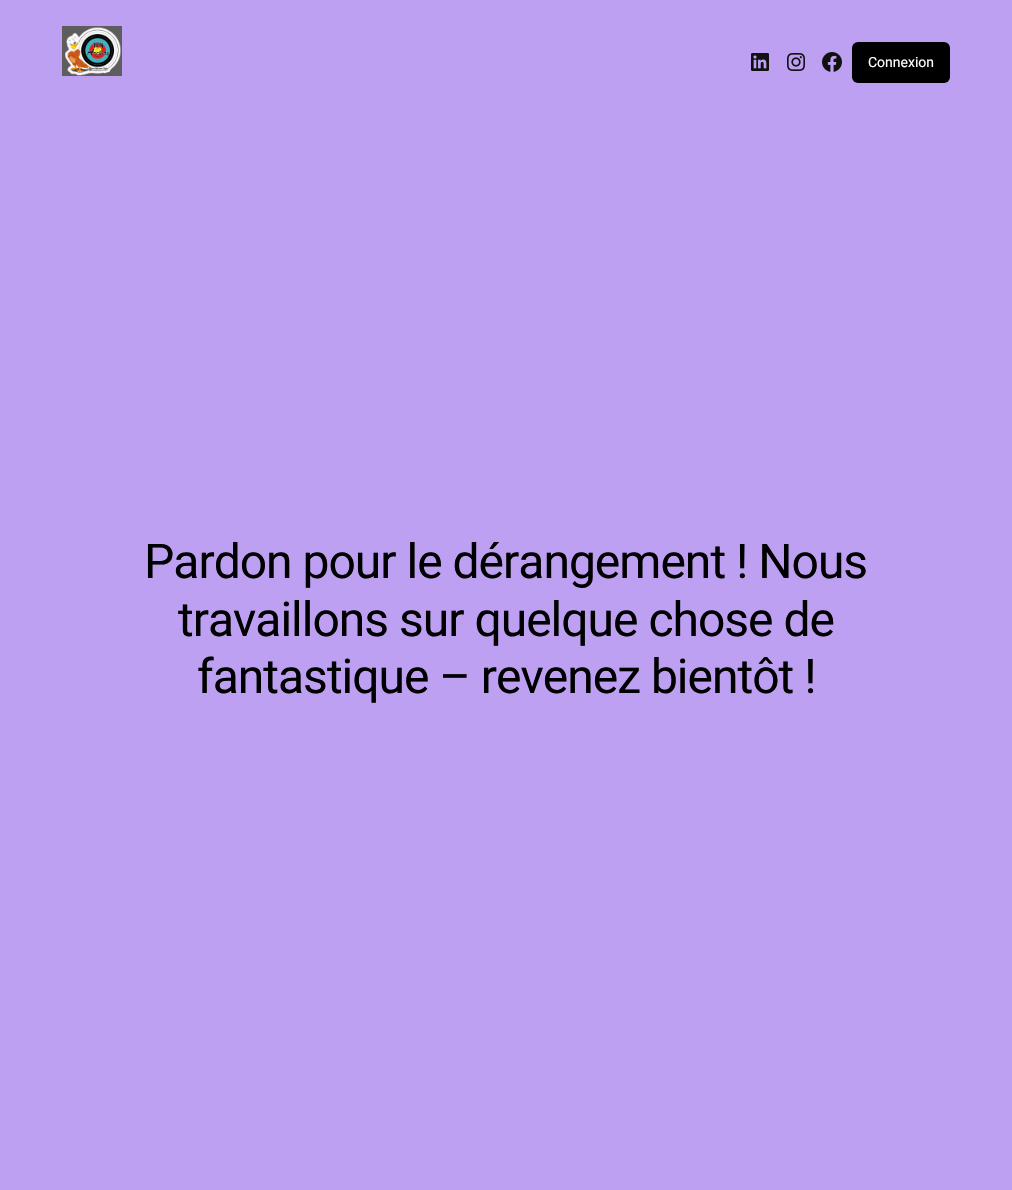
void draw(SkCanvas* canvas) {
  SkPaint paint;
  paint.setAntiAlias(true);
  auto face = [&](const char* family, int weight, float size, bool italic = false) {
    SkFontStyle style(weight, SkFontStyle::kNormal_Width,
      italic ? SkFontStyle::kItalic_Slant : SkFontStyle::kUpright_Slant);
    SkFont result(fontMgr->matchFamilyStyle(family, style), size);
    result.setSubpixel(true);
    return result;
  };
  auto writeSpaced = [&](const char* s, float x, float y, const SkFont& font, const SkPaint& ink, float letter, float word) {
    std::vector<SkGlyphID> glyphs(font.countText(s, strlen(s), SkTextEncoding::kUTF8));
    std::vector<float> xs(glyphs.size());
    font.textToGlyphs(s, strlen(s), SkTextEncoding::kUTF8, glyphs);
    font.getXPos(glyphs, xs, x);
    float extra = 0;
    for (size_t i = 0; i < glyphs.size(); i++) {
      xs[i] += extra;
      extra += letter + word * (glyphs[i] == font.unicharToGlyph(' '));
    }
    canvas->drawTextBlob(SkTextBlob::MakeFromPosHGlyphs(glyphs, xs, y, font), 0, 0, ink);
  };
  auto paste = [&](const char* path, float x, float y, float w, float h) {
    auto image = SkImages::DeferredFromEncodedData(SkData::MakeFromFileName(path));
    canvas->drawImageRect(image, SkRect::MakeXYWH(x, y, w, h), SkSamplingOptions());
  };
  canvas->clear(0xffbea0f2);
  paste("img/1.png", 62, 26, 60, 50);
  paste("img/2.png", 751, 53, 18, 18);
  paste("img/3.png", 787, 53, 18, 18);
  paste("img/4.png", 822, 52, 20, 20);
  paint.setColor(0xff000000);
  canvas->drawRoundRect(SkRect::MakeXYWH(852, 42, 98, 41), 6, 6, paint);
  auto f0 = face("Roboto", 400, 14);
  paint.setColor(0xffffffff);
  canvas->drawString("Connexion", 868, 67, f0, paint);
  auto f1 = face("Roboto", 400, 48);
  paint.setColor(0xff000000);
  {
    const struct { const char* s; float x, y; } items[] = {
      {"Pardon pour le dérangement ! Nous", 144, 578},
      {"travaillons sur quelque chose de", 178, 636},
      {"fantastique – revenez bientôt !", 197, 693},
    };
    for (auto [s, x, y] : items) {
      writeSpaced(s, x, y, f1, paint, -1, 0);
    }
  }
}
